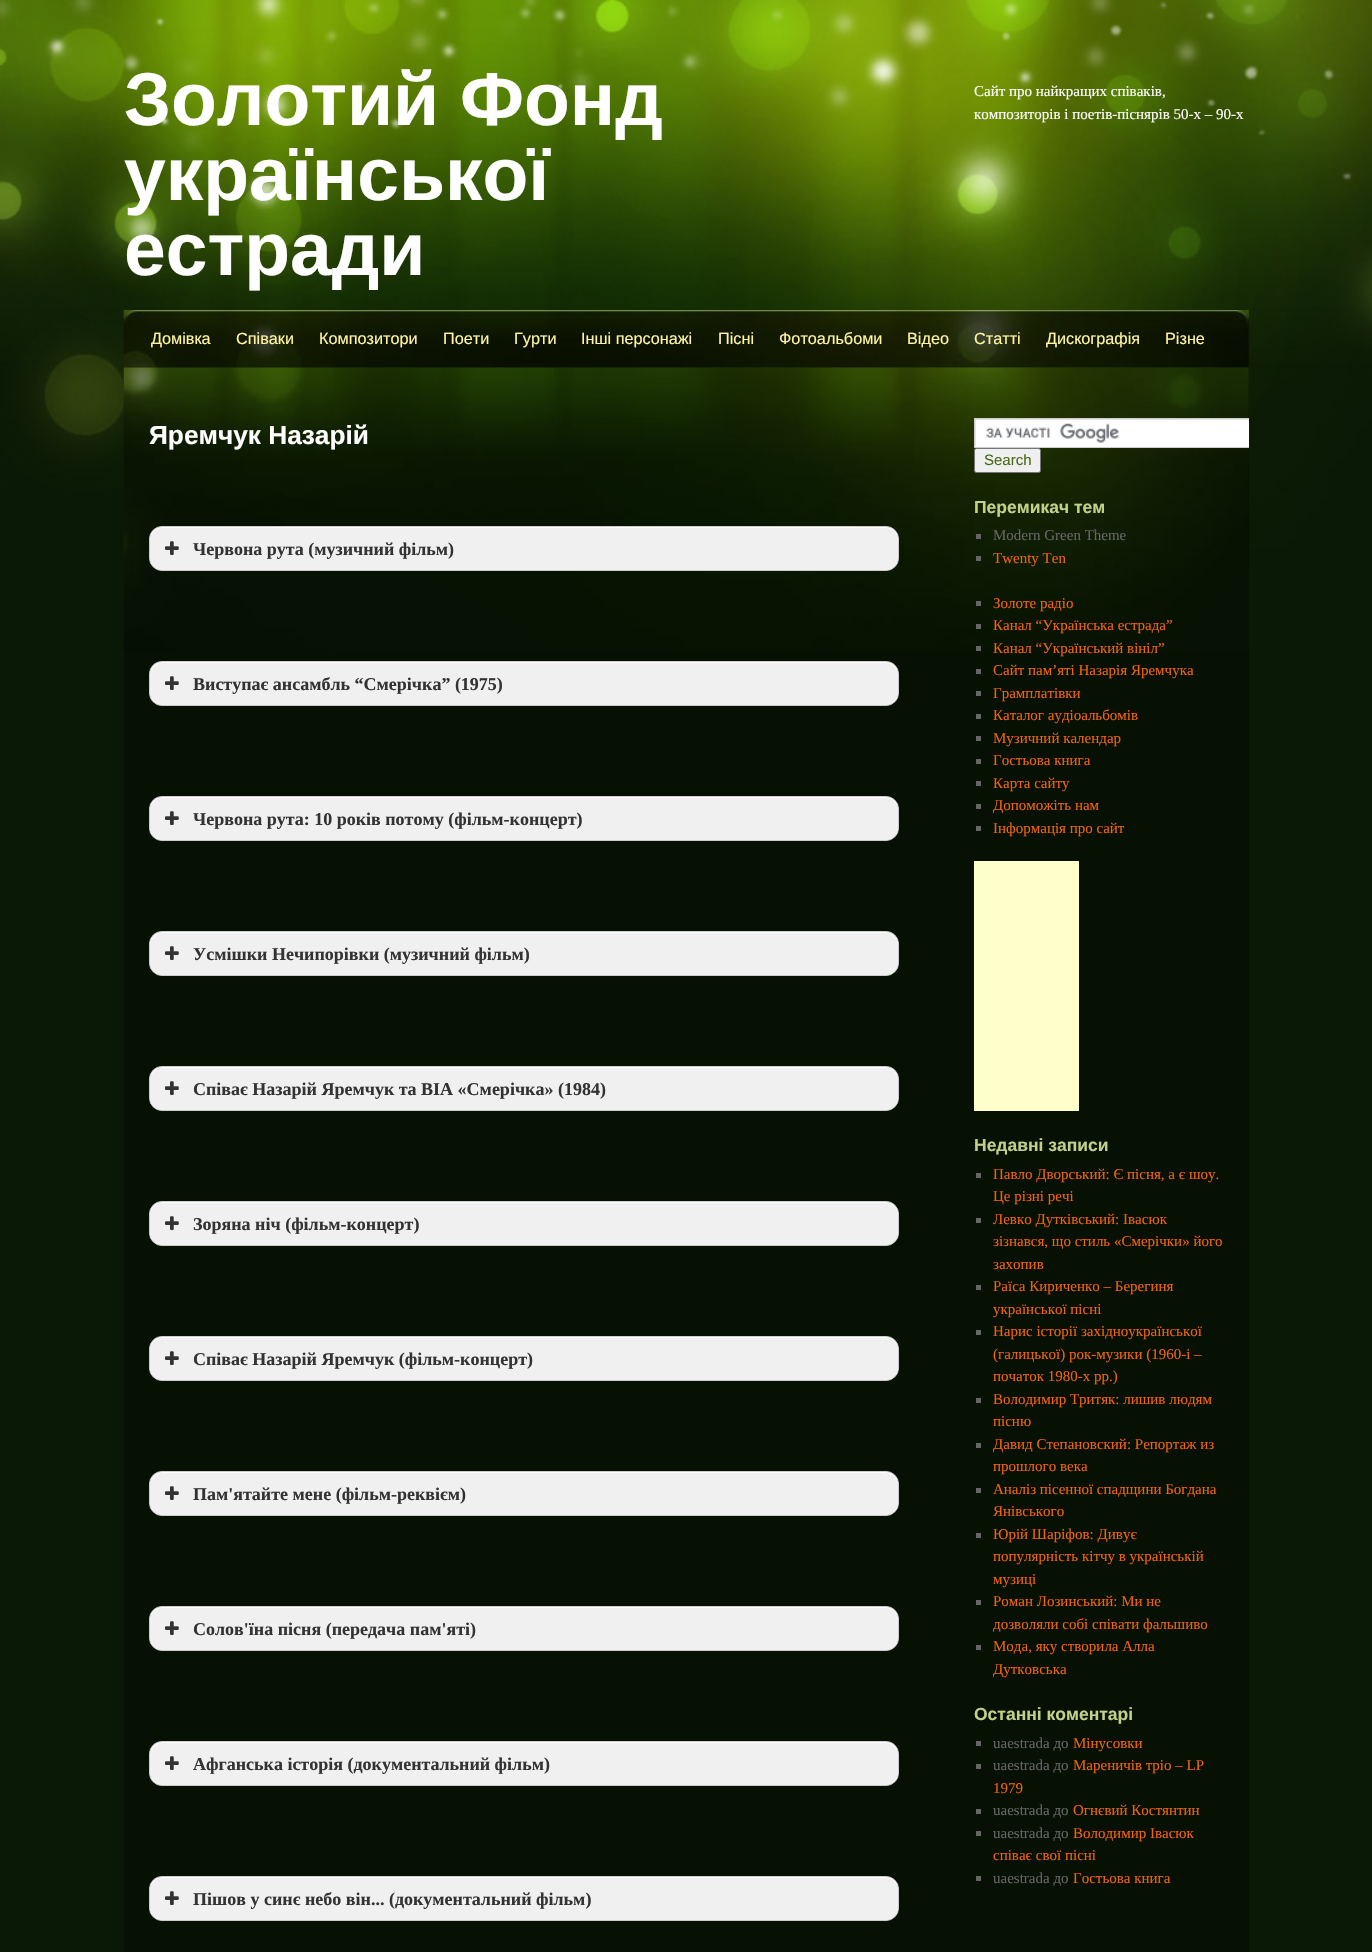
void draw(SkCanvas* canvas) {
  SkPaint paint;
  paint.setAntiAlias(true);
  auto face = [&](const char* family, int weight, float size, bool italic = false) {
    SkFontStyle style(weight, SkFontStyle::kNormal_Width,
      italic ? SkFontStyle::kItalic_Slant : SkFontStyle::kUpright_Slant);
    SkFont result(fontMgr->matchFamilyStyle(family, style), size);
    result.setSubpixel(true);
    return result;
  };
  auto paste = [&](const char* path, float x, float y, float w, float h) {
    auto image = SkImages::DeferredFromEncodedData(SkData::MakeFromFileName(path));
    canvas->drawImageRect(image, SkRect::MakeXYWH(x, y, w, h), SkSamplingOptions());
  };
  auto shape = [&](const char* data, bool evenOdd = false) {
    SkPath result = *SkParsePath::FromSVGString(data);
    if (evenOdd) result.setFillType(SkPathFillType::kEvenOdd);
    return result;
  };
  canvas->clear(0xff0a1905);
  paste("img/1.png", 0, 0, 1372, 549);
  paste("img/2.png", 123, 310, 1126, 58);
  paint.setColor(0xff061003);
  canvas->drawRect(SkRect::MakeXYWH(124, 368, 1125, 1584), paint);
  paste("img/3.png", 123, 367, 1126, 284);
  paint.setColor(0xffffffff);
  canvas->drawRoundRect(SkRect::MakeXYWH(149.5f, 526.5f, 749, 44), 12.5f, 12.5f, paint);
  paint.setStroke(true);
  paint.setStrokeWidth(1);
  paint.setColor(0xffcccccc);
  canvas->drawRoundRect(SkRect::MakeXYWH(149.5f, 526.5f, 749, 44), 12.5f, 12.5f, paint);
  paint.setStroke(false);
  paint.setColor(0xfff0f0f0);
  canvas->drawRoundRect(SkRect::MakeXYWH(150, 528, 748, 42), 13, 13, paint);
  paste("img/4.png", 165, 541, 14, 14);
  paint.setColor(0xffffffff);
  canvas->drawRoundRect(SkRect::MakeXYWH(149.5f, 661.5f, 749, 44), 12.5f, 12.5f, paint);
  paint.setStroke(true);
  paint.setColor(0xffcccccc);
  canvas->drawRoundRect(SkRect::MakeXYWH(149.5f, 661.5f, 749, 44), 12.5f, 12.5f, paint);
  paint.setStroke(false);
  paint.setColor(0xfff0f0f0);
  canvas->drawRoundRect(SkRect::MakeXYWH(150, 663, 748, 42), 13, 13, paint);
  paste("img/4.png", 165, 676, 14, 14);
  paint.setColor(0xffffffff);
  canvas->drawRoundRect(SkRect::MakeXYWH(149.5f, 796.5f, 749, 44), 12.5f, 12.5f, paint);
  paint.setStroke(true);
  paint.setColor(0xffcccccc);
  canvas->drawRoundRect(SkRect::MakeXYWH(149.5f, 796.5f, 749, 44), 12.5f, 12.5f, paint);
  paint.setStroke(false);
  paint.setColor(0xfff0f0f0);
  canvas->drawRoundRect(SkRect::MakeXYWH(150, 798, 748, 42), 13, 13, paint);
  paste("img/4.png", 165, 811, 14, 14);
  paint.setColor(0xffffffff);
  canvas->drawRoundRect(SkRect::MakeXYWH(149.5f, 931.5f, 749, 44), 12.5f, 12.5f, paint);
  paint.setStroke(true);
  paint.setColor(0xffcccccc);
  canvas->drawRoundRect(SkRect::MakeXYWH(149.5f, 931.5f, 749, 44), 12.5f, 12.5f, paint);
  paint.setStroke(false);
  paint.setColor(0xfff0f0f0);
  canvas->drawRoundRect(SkRect::MakeXYWH(150, 933, 748, 42), 13, 13, paint);
  paste("img/4.png", 165, 946, 14, 14);
  paint.setColor(0xffffffff);
  canvas->drawRoundRect(SkRect::MakeXYWH(149.5f, 1066.5f, 749, 44), 12.5f, 12.5f, paint);
  paint.setStroke(true);
  paint.setColor(0xffcccccc);
  canvas->drawRoundRect(SkRect::MakeXYWH(149.5f, 1066.5f, 749, 44), 12.5f, 12.5f, paint);
  paint.setStroke(false);
  paint.setColor(0xfff0f0f0);
  canvas->drawRoundRect(SkRect::MakeXYWH(150, 1068, 748, 42), 13, 13, paint);
  paste("img/4.png", 165, 1081, 14, 14);
  paint.setColor(0xffffffff);
  canvas->drawRoundRect(SkRect::MakeXYWH(149.5f, 1201.5f, 749, 44), 12.5f, 12.5f, paint);
  paint.setStroke(true);
  paint.setColor(0xffcccccc);
  canvas->drawRoundRect(SkRect::MakeXYWH(149.5f, 1201.5f, 749, 44), 12.5f, 12.5f, paint);
  paint.setStroke(false);
  paint.setColor(0xfff0f0f0);
  canvas->drawRoundRect(SkRect::MakeXYWH(150, 1203, 748, 42), 13, 13, paint);
  paste("img/4.png", 165, 1216, 14, 14);
  paint.setColor(0xffffffff);
  canvas->drawRoundRect(SkRect::MakeXYWH(149.5f, 1336.5f, 749, 44), 12.5f, 12.5f, paint);
  paint.setStroke(true);
  paint.setColor(0xffcccccc);
  canvas->drawRoundRect(SkRect::MakeXYWH(149.5f, 1336.5f, 749, 44), 12.5f, 12.5f, paint);
  paint.setStroke(false);
  paint.setColor(0xfff0f0f0);
  canvas->drawRoundRect(SkRect::MakeXYWH(150, 1338, 748, 42), 13, 13, paint);
  paste("img/4.png", 165, 1351, 14, 14);
  paint.setColor(0xffffffff);
  canvas->drawRoundRect(SkRect::MakeXYWH(149.5f, 1471.5f, 749, 44), 12.5f, 12.5f, paint);
  paint.setStroke(true);
  paint.setColor(0xffcccccc);
  canvas->drawRoundRect(SkRect::MakeXYWH(149.5f, 1471.5f, 749, 44), 12.5f, 12.5f, paint);
  paint.setStroke(false);
  paint.setColor(0xfff0f0f0);
  canvas->drawRoundRect(SkRect::MakeXYWH(150, 1473, 748, 42), 13, 13, paint);
  paste("img/4.png", 165, 1486, 14, 14);
  paint.setColor(0xffffffff);
  canvas->drawRoundRect(SkRect::MakeXYWH(149.5f, 1606.5f, 749, 44), 12.5f, 12.5f, paint);
  paint.setStroke(true);
  paint.setColor(0xffcccccc);
  canvas->drawRoundRect(SkRect::MakeXYWH(149.5f, 1606.5f, 749, 44), 12.5f, 12.5f, paint);
  paint.setStroke(false);
  paint.setColor(0xfff0f0f0);
  canvas->drawRoundRect(SkRect::MakeXYWH(150, 1608, 748, 42), 13, 13, paint);
  paste("img/4.png", 165, 1621, 14, 14);
  paint.setColor(0xffffffff);
  canvas->drawRoundRect(SkRect::MakeXYWH(149.5f, 1741.5f, 749, 44), 12.5f, 12.5f, paint);
  paint.setStroke(true);
  paint.setColor(0xffcccccc);
  canvas->drawRoundRect(SkRect::MakeXYWH(149.5f, 1741.5f, 749, 44), 12.5f, 12.5f, paint);
  paint.setStroke(false);
  paint.setColor(0xfff0f0f0);
  canvas->drawRoundRect(SkRect::MakeXYWH(150, 1743, 748, 42), 13, 13, paint);
  paste("img/4.png", 165, 1756, 14, 14);
  paint.setColor(0xffffffff);
  canvas->drawRoundRect(SkRect::MakeXYWH(149.5f, 1876.5f, 749, 44), 12.5f, 12.5f, paint);
  paint.setStroke(true);
  paint.setColor(0xffcccccc);
  canvas->drawRoundRect(SkRect::MakeXYWH(149.5f, 1876.5f, 749, 44), 12.5f, 12.5f, paint);
  paint.setStroke(false);
  paint.setColor(0xfff0f0f0);
  canvas->drawRoundRect(SkRect::MakeXYWH(150, 1878, 748, 42), 13, 13, paint);
  paste("img/4.png", 165, 1891, 14, 14);
  paint.setColor(0xffffffff);
  canvas->drawRect(SkRect::MakeXYWH(975, 420, 274, 27), paint);
  paste("img/5.png", 986, 423, 133, 20);
  canvas->save();
  canvas->clipRect(SkRect::MakeXYWH(975, 419, 274, 27));
  paint.setColor(0xffe6e6e6);
  canvas->drawPath(shape("M851 295H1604V570H851ZM976 420H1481V448H976Z", true), paint);
  canvas->restore();
  canvas->save();
  canvas->clipRect(SkRect::MakeXYWH(974, 418, 275, 1285));
  paint.setStroke(true);
  paint.setColor(0xffcccccc);
  canvas->drawRect(SkRect::MakeXYWH(974.5f, 418.5f, 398, 29), paint);
  canvas->restore();
  paint.setStroke(false);
  paint.setColor(0xffefefef);
  canvas->drawRoundRect(SkRect::MakeXYWH(974.5f, 448.5f, 66, 24), 2, 2, paint);
  paint.setStroke(true);
  paint.setColor(0xff767676);
  canvas->drawRoundRect(SkRect::MakeXYWH(974.5f, 448.5f, 66, 24), 2, 2, paint);
  paint.setStroke(false);
  {
    const struct { float x, y, w, h; SkColor color; } items[] = {
      {976, 534, 5, 5, 0xff666666},
      {976, 556, 5, 5, 0xff666666},
      {976, 601, 5, 5, 0xff666666},
      {976, 624, 5, 5, 0xff666666},
      {976, 646, 5, 5, 0xff666666},
      {976, 669, 5, 5, 0xff666666},
      {976, 691, 5, 5, 0xff666666},
      {976, 714, 5, 5, 0xff666666},
      {976, 736, 5, 5, 0xff666666},
      {976, 759, 5, 5, 0xff666666},
      {976, 781, 5, 5, 0xff666666},
      {976, 804, 5, 5, 0xff666666},
      {976, 826, 5, 5, 0xff666666},
      {974, 861, 105, 250, 0xffffffcc},
      {976, 1173, 5, 5, 0xff666666},
      {976, 1218, 5, 5, 0xff666666},
      {976, 1285, 5, 5, 0xff666666},
      {976, 1330, 5, 5, 0xff666666},
      {976, 1398, 5, 5, 0xff666666},
      {976, 1443, 5, 5, 0xff666666},
      {976, 1488, 5, 5, 0xff666666},
      {976, 1533, 5, 5, 0xff666666},
      {976, 1600, 5, 5, 0xff666666},
      {976, 1645, 5, 5, 0xff666666},
      {976, 1741, 5, 5, 0xff666666},
      {976, 1764, 5, 5, 0xff666666},
      {976, 1809, 5, 5, 0xff666666},
      {976, 1831, 5, 5, 0xff666666},
      {976, 1876, 5, 5, 0xff666666},
    };
    for (auto [x, y, w, h, color] : items) {
      paint.setColor(color);
      canvas->drawRect(SkRect::MakeXYWH(x, y, w, h), paint);
    }
  }
  auto f0 = face("Liberation Sans", 700, 75);
  paint.setColor(0xffffffff);
  {
    const struct { const char* s; float x, y; } items[] = {
      {"Золотий Фонд", 124, 125},
      {"української", 124, 200},
      {"естради", 124, 275},
    };
    for (auto [s, x, y] : items) {
      canvas->drawString(s, x, y, f0, paint);
    }
  }
  auto f1 = face("Liberation Serif", 400, 15);
  canvas->drawString("Сайт про найкращих співаків,", 974, 96, f1, paint);
  canvas->drawString("композиторів і поетів-піснярів 50-х – 90-х", 974, 119, f1, paint);
  auto f2 = face("Liberation Sans", 400, 16.25f);
  paint.setColor(0xfffff5a3);
  {
    const struct { const char* s; float x, y; } items[] = {
      {"Домівка", 151, 344},
      {"Співаки", 236, 344},
      {"Композитори", 319, 344},
      {"Поети", 443, 344},
      {"Гурти", 514, 344},
      {"Інші персонажі", 581, 344},
      {"Пісні", 718, 344},
      {"Фотоальбоми", 779, 344},
      {"Відео", 907, 344},
      {"Статті", 974, 344},
      {"Дискографія", 1046, 344},
      {"Різне", 1165, 344},
    };
    for (auto [s, x, y] : items) {
      canvas->drawString(s, x, y, f2, paint);
    }
  }
  auto f3 = face("Liberation Sans", 700, 26.25f);
  paint.setColor(0xffffffff);
  canvas->drawString("Яремчук Назарій", 149, 444, f3, paint);
  auto f4 = face("Liberation Serif", 700, 18);
  paint.setColor(0xff333333);
  {
    const struct { const char* s; float x, y; } items[] = {
      {"Червона рута (музичний фільм)", 193, 555},
      {"Виступає ансамбль “Смерічка” (1975)", 193, 690},
      {"Червона рута: 10 років потому (фільм-концерт)", 193, 825},
      {"Усмішки Нечипорівки (музичний фільм)", 193, 960},
      {"Співає Назарій Яремчук та ВІА «Смерічка» (1984)", 193, 1095},
      {"Зоряна ніч (фільм-концерт)", 193, 1230},
      {"Співає Назарій Яремчук (фільм-концерт)", 193, 1365},
      {"Пам'ятайте мене (фільм-реквієм)", 193, 1500},
      {"Солов'їна пісня (передача пам'яті)", 193, 1635},
      {"Афганська історія (документальний фільм)", 193, 1770},
      {"Пішов у синє небо він... (документальний фільм)", 193, 1905},
    };
    for (auto [s, x, y] : items) {
      canvas->drawString(s, x, y, f4, paint);
    }
  }
  auto f5 = face("Liberation Sans", 400, 15);
  paint.setColor(0xff496a19);
  canvas->drawString("Search", 984, 465, f5, paint);
  auto f6 = face("Liberation Sans", 700, 17.5f);
  paint.setColor(0xffc2d088);
  canvas->drawString("Перемикач тем", 974, 513, f6, paint);
  paint.setColor(0xff666666);
  canvas->drawString("Modern Green Theme", 993, 540, f1, paint);
  paint.setColor(0xfff0630d);
  {
    const struct { const char* s; float x, y; } items[] = {
      {"Twenty Ten", 993, 563},
      {"Золоте радіо", 993, 608},
      {"Канал “Українська естрада”", 993, 630},
      {"Канал “Український вініл”", 993, 653},
      {"Сайт пам’яті Назарія Яремчука", 993, 675},
      {"Грамплатівки", 993, 698},
      {"Каталог аудіоальбомів", 993, 720},
      {"Музичний календар", 993, 743},
      {"Гостьова книга", 993, 765},
      {"Карта сайту", 993, 788},
      {"Допоможіть нам", 993, 810},
      {"Інформація про сайт", 993, 833},
    };
    for (auto [s, x, y] : items) {
      canvas->drawString(s, x, y, f1, paint);
    }
  }
  paint.setColor(0xffc2d088);
  canvas->drawString("Недавні записи", 974, 1151, f6, paint);
  paint.setColor(0xfff0630d);
  {
    const struct { const char* s; float x, y; } items[] = {
      {"Павло Дворський: Є пісня, а є шоу.", 993, 1179},
      {"Це різні речі", 993, 1201},
      {"Левко Дутківський: Івасюк", 993, 1224},
      {"зізнався, що стиль «Смерічки» його", 993, 1246},
      {"захопив", 993, 1269},
      {"Раїса Кириченко – Берегиня", 993, 1291},
      {"української пісні", 993, 1314},
      {"Нарис історії західноукраїнської", 993, 1336},
      {"(галицької) рок-музики (1960-і –", 993, 1359},
      {"початок 1980-х рр.)", 993, 1381},
      {"Володимир Тритяк: лишив людям", 993, 1404},
      {"пісню", 993, 1426},
      {"Давид Степановский: Репортаж из", 993, 1449},
      {"прошлого века", 993, 1471},
      {"Аналіз пісенної спадщини Богдана", 993, 1494},
      {"Янівського", 993, 1516},
      {"Юрій Шаріфов: Дивує", 993, 1539},
      {"популярність кітчу в українській", 993, 1561},
      {"музиці", 993, 1584},
      {"Роман Лозинський: Ми не", 993, 1606},
      {"дозволяли собі співати фальшиво", 993, 1629},
      {"Мода, яку створила Алла", 993, 1651},
      {"Дутковська", 993, 1674},
    };
    for (auto [s, x, y] : items) {
      canvas->drawString(s, x, y, f1, paint);
    }
  }
  paint.setColor(0xffc2d088);
  canvas->drawString("Останні коментарі", 974, 1720, f6, paint);
  paint.setColor(0xff666666);
  canvas->drawString("uaestrada до", 993, 1748, f1, paint);
  paint.setColor(0xfff0630d);
  canvas->drawString("Мінусовки", 1073, 1748, f1, paint);
  paint.setColor(0xff666666);
  canvas->drawString("uaestrada до", 993, 1770, f1, paint);
  paint.setColor(0xfff0630d);
  canvas->drawString("Мареничів тріо – LP", 1073, 1770, f1, paint);
  canvas->drawString("1979", 993, 1793, f1, paint);
  paint.setColor(0xff666666);
  canvas->drawString("uaestrada до", 993, 1815, f1, paint);
  paint.setColor(0xfff0630d);
  canvas->drawString("Огнєвий Костянтин", 1073, 1815, f1, paint);
  paint.setColor(0xff666666);
  canvas->drawString("uaestrada до", 993, 1838, f1, paint);
  paint.setColor(0xfff0630d);
  canvas->drawString("Володимир Івасюк", 1073, 1838, f1, paint);
  canvas->drawString("співає свої пісні", 993, 1860, f1, paint);
  paint.setColor(0xff666666);
  canvas->drawString("uaestrada до", 993, 1883, f1, paint);
  paint.setColor(0xfff0630d);
  canvas->drawString("Гостьова книга", 1073, 1883, f1, paint);
}
